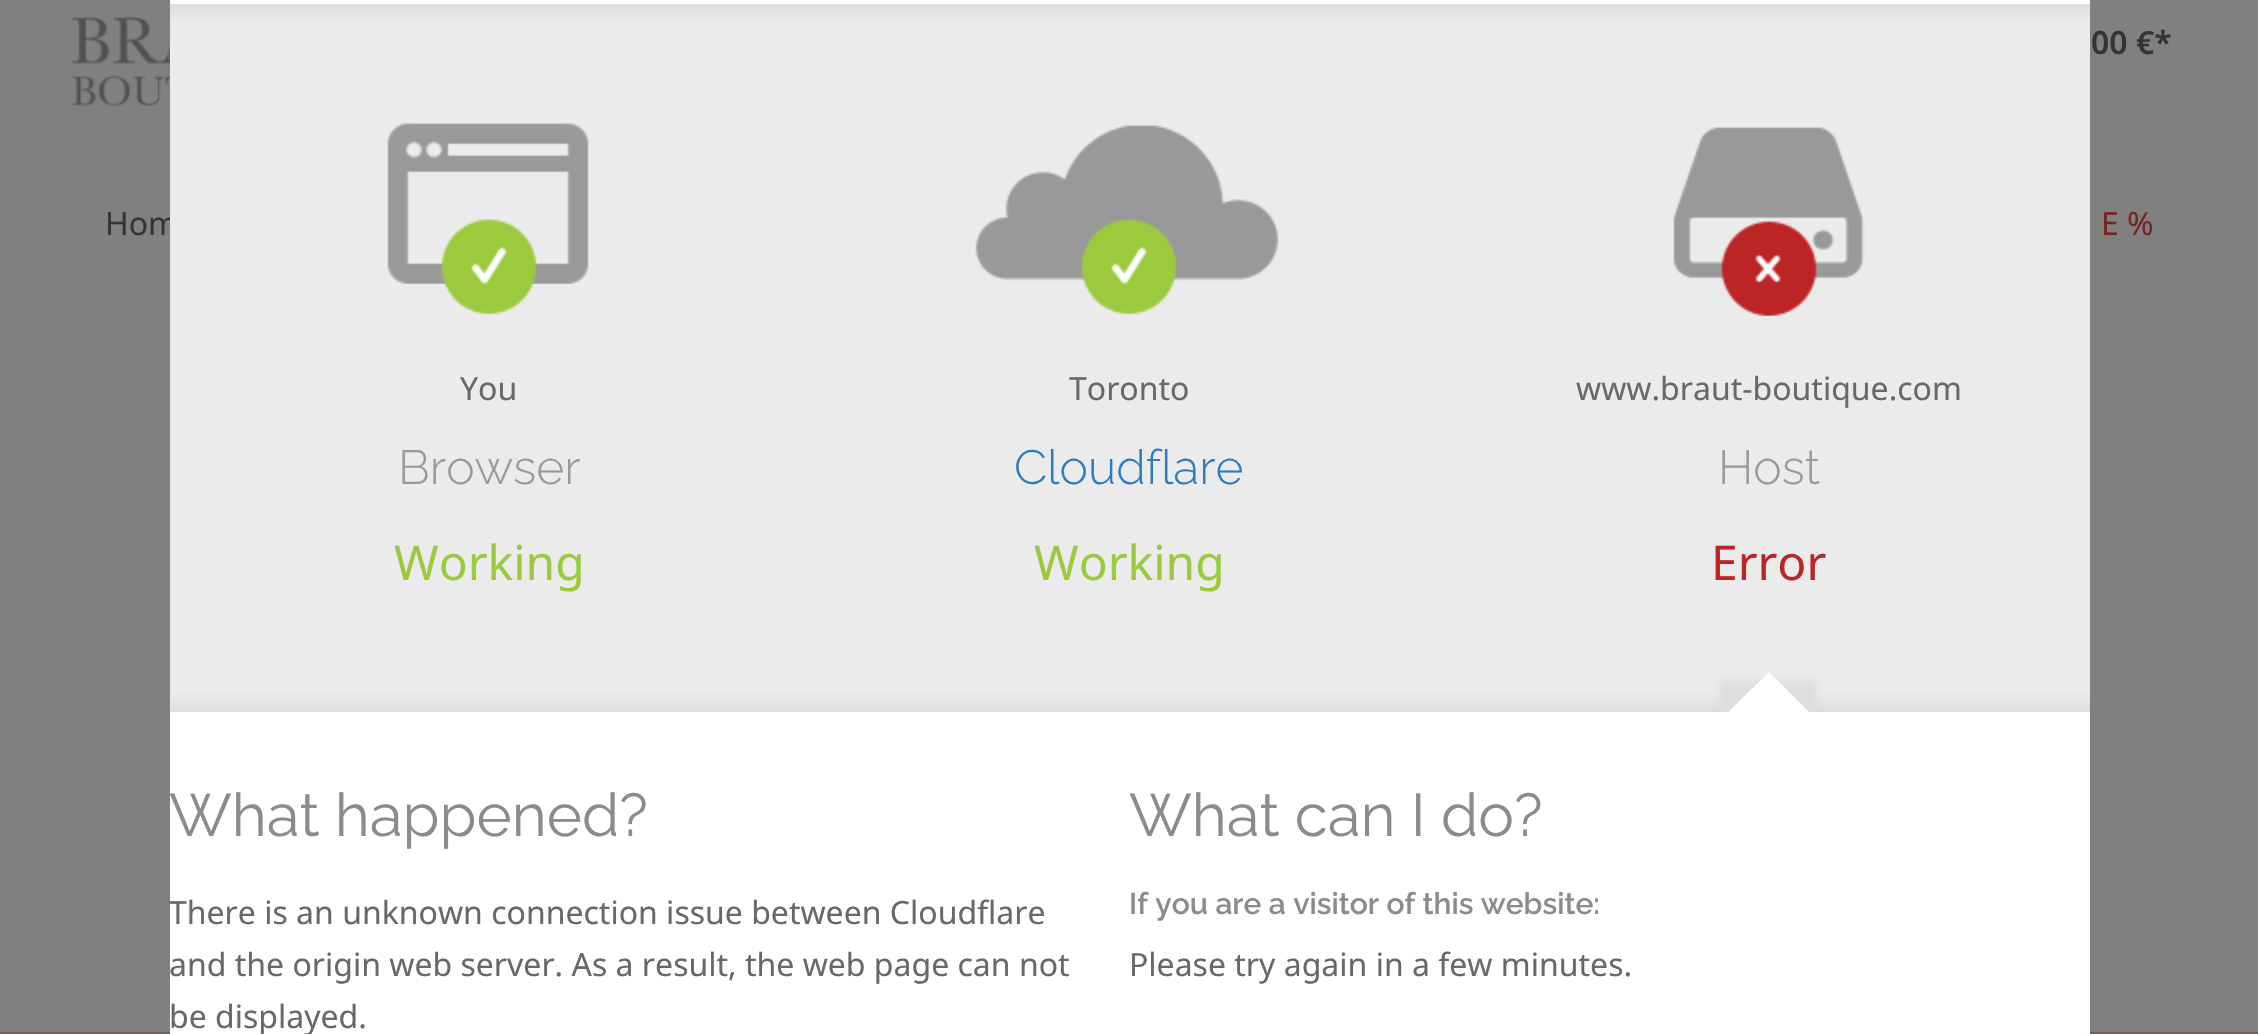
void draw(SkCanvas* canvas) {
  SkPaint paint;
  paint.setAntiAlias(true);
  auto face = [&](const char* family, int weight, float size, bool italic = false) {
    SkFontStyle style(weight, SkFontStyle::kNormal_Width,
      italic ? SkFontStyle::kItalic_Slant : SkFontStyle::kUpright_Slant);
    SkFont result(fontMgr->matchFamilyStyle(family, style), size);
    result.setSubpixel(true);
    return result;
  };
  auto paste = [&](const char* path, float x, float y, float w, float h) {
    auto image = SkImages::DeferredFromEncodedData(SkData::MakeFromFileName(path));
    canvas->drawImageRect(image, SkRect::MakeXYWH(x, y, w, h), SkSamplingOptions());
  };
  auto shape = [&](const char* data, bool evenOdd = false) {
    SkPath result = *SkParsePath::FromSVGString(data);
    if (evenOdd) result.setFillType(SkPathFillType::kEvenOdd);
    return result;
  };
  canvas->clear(0xff808080);
  paste("img/1.png", 71, 16, 99, 90);
  paint.setColor(0xff716356);
  canvas->drawRect(SkRect::MakeXYWH(0, 1032, 2258, 2), paint);
  auto f0 = face("Noto Sans", 600, 32);
  paint.setColor(0xff343434);
  canvas->drawString("00 €*", 2091, 54, f0, paint);
  auto f1 = face("Noto Sans", 400, 32);
  canvas->drawString("Hom", 105, 235, f1, paint);
  paint.setColor(0xff74261e);
  canvas->drawString("E %", 2101, 235, f1, paint);
  paint.setColor(0xffffffff);
  canvas->drawRect(SkRect::MakeXYWH(170, 0, 1920, 1034), paint);
  {
    const SkColor colors[] = {0xffdedede, 0xffebebeb, 0xffebebeb, 0xffdedede};
    const float stops[] = {0, 0.03f, 0.97f, 1};
    const SkPoint ends[] = {{1130, 3.7f}, {1130, 712}};
    paint.setShader(SkGradientShader::MakeLinear(ends, colors, stops, 4, SkTileMode::kClamp));
    paint.setAlpha(255);
  }
  canvas->drawRect(SkRect::MakeXYWH(170, 4, 1920, 708), paint);
  paste("img/2.png", 387, 123, 202, 161);
  paste("img/3.png", 441, 219, 96, 96);
  paint.setShader(nullptr);
  paint.setColor(0xff686868);
  canvas->drawString("You", 460, 400, f1, paint);
  auto f2 = face("Raleway", 300, 48);
  paint.setColor(0xff999999);
  canvas->drawString("Browser", 398, 484, f2, paint);
  auto f3 = face("Noto Sans", 400, 48);
  paint.setColor(0xff9bca3e);
  canvas->drawString("Working", 394, 580, f3, paint);
  paste("img/4.png", 975, 125, 304, 156);
  paste("img/5.png", 1081, 219, 96, 96);
  paint.setColor(0xff686868);
  canvas->drawString("Toronto", 1069, 400, f1, paint);
  paint.setColor(0xff2f7bbf);
  canvas->drawString("Cloudflare", 1014, 484, f2, paint);
  paint.setColor(0xff9bca3e);
  canvas->drawString("Working", 1034, 580, f3, paint);
  paste("img/6.png", 1673, 127, 192, 152);
  paste("img/7.png", 1721, 221, 96, 95);
  paint.setColor(0xff686868);
  canvas->drawString("www.braut-boutique.com", 1576, 400, f1, paint);
  paint.setColor(0xff999999);
  canvas->drawString("Host", 1718, 484, f2, paint);
  paint.setColor(0xffbd2426);
  canvas->drawString("Error", 1711, 580, f3, paint);
  canvas->save();
  canvas->clipRect(SkRect::MakeXYWH(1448, 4, 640, 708));
  paint.setColor(0xffdedede);
  paint.setMaskFilter(SkMaskFilter::MakeBlur(kNormal_SkBlurStyle, 4));
  canvas->drawRect(SkRect::MakeXYWH(1720, 680, 96, 96), paint);
  paint.setMaskFilter(nullptr);
  canvas->restore();
  canvas->save();
  canvas->clipRect(SkRect::MakeXYWH(1448, 4, 640, 708));
  paint.setColor(0xffffffff);
  canvas->drawPath(shape("M1769 672L1825 728L1769 785L1712 728Z"), paint);
  canvas->restore();
  auto f4 = face("Raleway", 100, 60);
  paint.setColor(0xff8b8b8b);
  canvas->drawString("What happened?", 169, 836, f4, paint);
  paint.setColor(0xff686868);
  {
    const struct { const char* s; float x, y; } items[] = {
      {"There is an unknown connection issue between Cloudflare", 169, 924},
      {"and the origin web server. As a result, the web page can not", 169, 976},
      {"be displayed.", 169, 1028},
    };
    for (auto [s, x, y] : items) {
      canvas->drawString(s, x, y, f1, paint);
    }
  }
  paint.setColor(0xff8b8b8b);
  canvas->drawString("What can I do?", 1129, 836, f4, paint);
  auto f5 = face("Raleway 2", 100, 30);
  canvas->drawString("If you are a visitor of this website:", 1129, 914, f5, paint);
  paint.setColor(0xff686868);
  canvas->drawString("Please try again in a few minutes.", 1129, 976, f1, paint);
}
